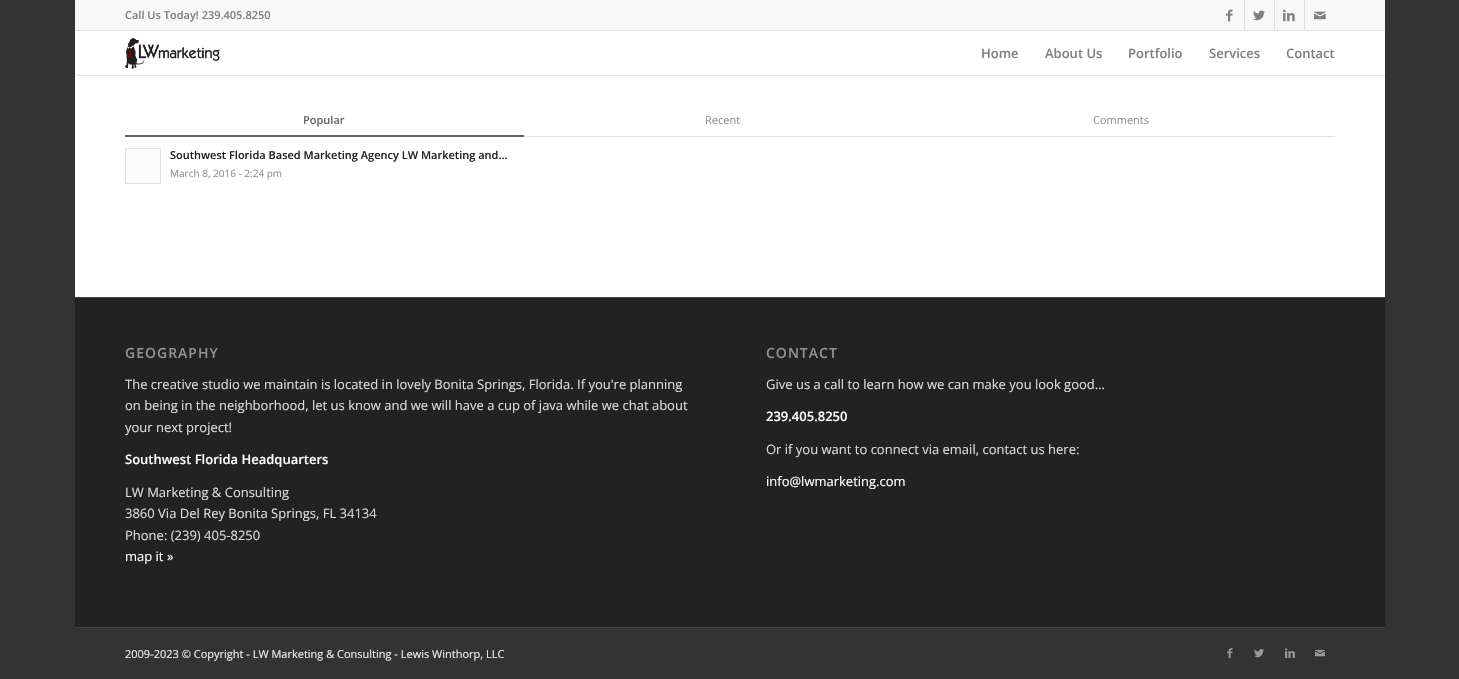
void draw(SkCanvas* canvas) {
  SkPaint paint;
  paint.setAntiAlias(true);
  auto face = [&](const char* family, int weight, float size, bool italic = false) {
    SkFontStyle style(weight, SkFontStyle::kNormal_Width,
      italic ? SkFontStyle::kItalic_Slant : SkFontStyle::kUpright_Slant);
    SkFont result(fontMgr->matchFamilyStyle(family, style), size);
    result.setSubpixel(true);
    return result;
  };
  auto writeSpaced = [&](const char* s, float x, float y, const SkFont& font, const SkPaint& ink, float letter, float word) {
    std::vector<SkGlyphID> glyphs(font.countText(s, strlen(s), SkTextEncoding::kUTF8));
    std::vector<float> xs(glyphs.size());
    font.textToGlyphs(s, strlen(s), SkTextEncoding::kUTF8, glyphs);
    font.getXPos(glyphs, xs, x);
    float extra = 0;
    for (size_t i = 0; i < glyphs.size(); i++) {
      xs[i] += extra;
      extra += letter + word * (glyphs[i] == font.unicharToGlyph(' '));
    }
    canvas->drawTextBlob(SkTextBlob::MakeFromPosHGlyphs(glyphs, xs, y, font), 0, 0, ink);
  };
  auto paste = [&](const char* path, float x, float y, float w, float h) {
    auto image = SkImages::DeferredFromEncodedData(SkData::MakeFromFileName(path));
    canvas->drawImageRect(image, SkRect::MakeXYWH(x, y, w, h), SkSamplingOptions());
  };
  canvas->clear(0xff333333);
  {
    const struct { float x, y, w, h; SkColor color; } items[] = {
      {75, 0, 1310, 30, 0xfff8f8f8},
      {75, 30, 1310, 1, 0xffe1e1e1},
      {1244, 0, 1, 30, 0xffe1e1e1},
    };
    for (auto [x, y, w, h, color] : items) {
      paint.setColor(color);
      canvas->drawRect(SkRect::MakeXYWH(x, y, w, h), paint);
    }
  }
  paste("img/1.png", 1226, 9, 7, 13);
  canvas->drawRect(SkRect::MakeXYWH(1274, 0, 1, 30), paint);
  paste("img/2.png", 1253, 10, 12, 11);
  canvas->drawRect(SkRect::MakeXYWH(1304, 0, 1, 30), paint);
  paste("img/3.png", 1283, 9, 12, 13);
  paste("img/4.png", 1314, 11, 12, 9);
  canvas->drawRect(SkRect::MakeXYWH(75, 75, 1310, 1), paint);
  paint.setColor(0xffffffff);
  canvas->drawRect(SkRect::MakeXYWH(75, 31, 1310, 44), paint);
  paste("img/5.png", 125, 38, 95, 31);
  {
    const struct { float x, y, w, h; SkColor color; } items[] = {
      {75, 76, 1310, 221, 0xffffffff},
      {524, 136, 811, 1, 0xffe1e1e1},
      {125, 135, 399, 2, 0xff666666},
    };
    for (auto [x, y, w, h, color] : items) {
      paint.setColor(color);
      canvas->drawRect(SkRect::MakeXYWH(x, y, w, h), paint);
    }
  }
  paint.setColor(0xfffcfcfc);
  canvas->drawRect(SkRect::MakeXYWH(125.5f, 148.5f, 35, 35), paint);
  paint.setStroke(true);
  paint.setStrokeWidth(1);
  paint.setColor(0xffe1e1e1);
  canvas->drawRect(SkRect::MakeXYWH(125.5f, 148.5f, 35, 35), paint);
  paint.setStroke(false);
  {
    const struct { float x, y, w, h; SkColor color; } items[] = {
      {75, 298, 1310, 329, 0xff222222},
      {75, 297, 1310, 1, 0xff444444},
      {75, 627, 1310, 1, 0xff444444},
    };
    for (auto [x, y, w, h, color] : items) {
      paint.setColor(color);
      canvas->drawRect(SkRect::MakeXYWH(x, y, w, h), paint);
    }
  }
  paste("img/6.png", 1227, 648, 6, 11);
  paste("img/7.png", 1254, 649, 10, 9);
  paste("img/8.png", 1285, 648, 10, 10);
  paste("img/9.png", 1315, 649, 10, 8);
  auto f0 = face("Open Sans", 600, 11);
  paint.setColor(0xff808080);
  canvas->drawString("Call Us Today! 239.405.8250", 125, 19, f0, paint);
  auto f1 = face("Open Sans", 600, 13);
  {
    const struct { const char* s; float x, y; } items[] = {
      {"Home", 981, 58},
      {"About Us", 1045, 58},
      {"Portfolio", 1128, 58},
      {"Services", 1209, 58},
      {"Contact", 1286, 58},
    };
    for (auto [s, x, y] : items) {
      canvas->drawString(s, x, y, f1, paint);
    }
  }
  paint.setColor(0xff666666);
  canvas->drawString("Popular", 303, 124, f0, paint);
  auto f2 = face("Open Sans", 400, 11);
  paint.setColor(0xff919191);
  canvas->drawString("Recent", 705, 124, f2, paint);
  canvas->drawString("Comments", 1093, 124, f2, paint);
  paint.setColor(0xff222222);
  canvas->drawString("Southwest Florida Based Marketing Agency LW Marketing and...", 170, 159, f0, paint);
  auto f3 = face("Open Sans", 400, 10);
  paint.setColor(0xff919191);
  canvas->drawString("March 8, 2016 - 2:24 pm", 170, 177, f3, paint);
  auto f4 = face("Open Sans", 600, 14);
  writeSpaced("GEOGRAPHY", 125, 358, f4, paint, 1, 0);
  auto f5 = face("Open Sans", 400, 13);
  paint.setColor(0xffdddddd);
  {
    const struct { const char* s; float x, y; } items[] = {
      {"The creative studio we maintain is located in lovely Bonita Springs, Florida. If you're planning", 125, 389},
      {"on being in the neighborhood, let us know and we will have a cup of java while we chat about", 125, 410},
      {"your next project!", 125, 432},
    };
    for (auto [s, x, y] : items) {
      canvas->drawString(s, x, y, f5, paint);
    }
  }
  paint.setColor(0xffffffff);
  canvas->drawString("Southwest Florida Headquarters", 125, 464, f1, paint);
  paint.setColor(0xffdddddd);
  {
    const struct { const char* s; float x, y; } items[] = {
      {"LW Marketing & Consulting", 125, 497},
      {"3860 Via Del Rey Bonita Springs, FL 34134", 125, 518},
      {"Phone: (239) 405-8250", 125, 540},
    };
    for (auto [s, x, y] : items) {
      canvas->drawString(s, x, y, f5, paint);
    }
  }
  paint.setColor(0xffffffff);
  canvas->drawString("map it »", 125, 561, f5, paint);
  paint.setColor(0xff919191);
  writeSpaced("CONTACT", 766, 358, f4, paint, 1, 0);
  paint.setColor(0xffdddddd);
  canvas->drawString("Give us a call to learn how we can make you look good…", 766, 389, f5, paint);
  paint.setColor(0xffffffff);
  canvas->drawString("239.405.8250", 766, 421, f1, paint);
  paint.setColor(0xffdddddd);
  canvas->drawString("Or if you want to connect via email, contact us here:", 766, 454, f5, paint);
  paint.setColor(0xffffffff);
  canvas->drawString("info@lwmarketing.com", 766, 486, f5, paint);
  paint.setColor(0xffeeeeee);
  canvas->drawString("2009-2023 © Copyright - LW Marketing & Consulting - Lewis Winthorp, LLC", 125, 658, f2, paint);
}
